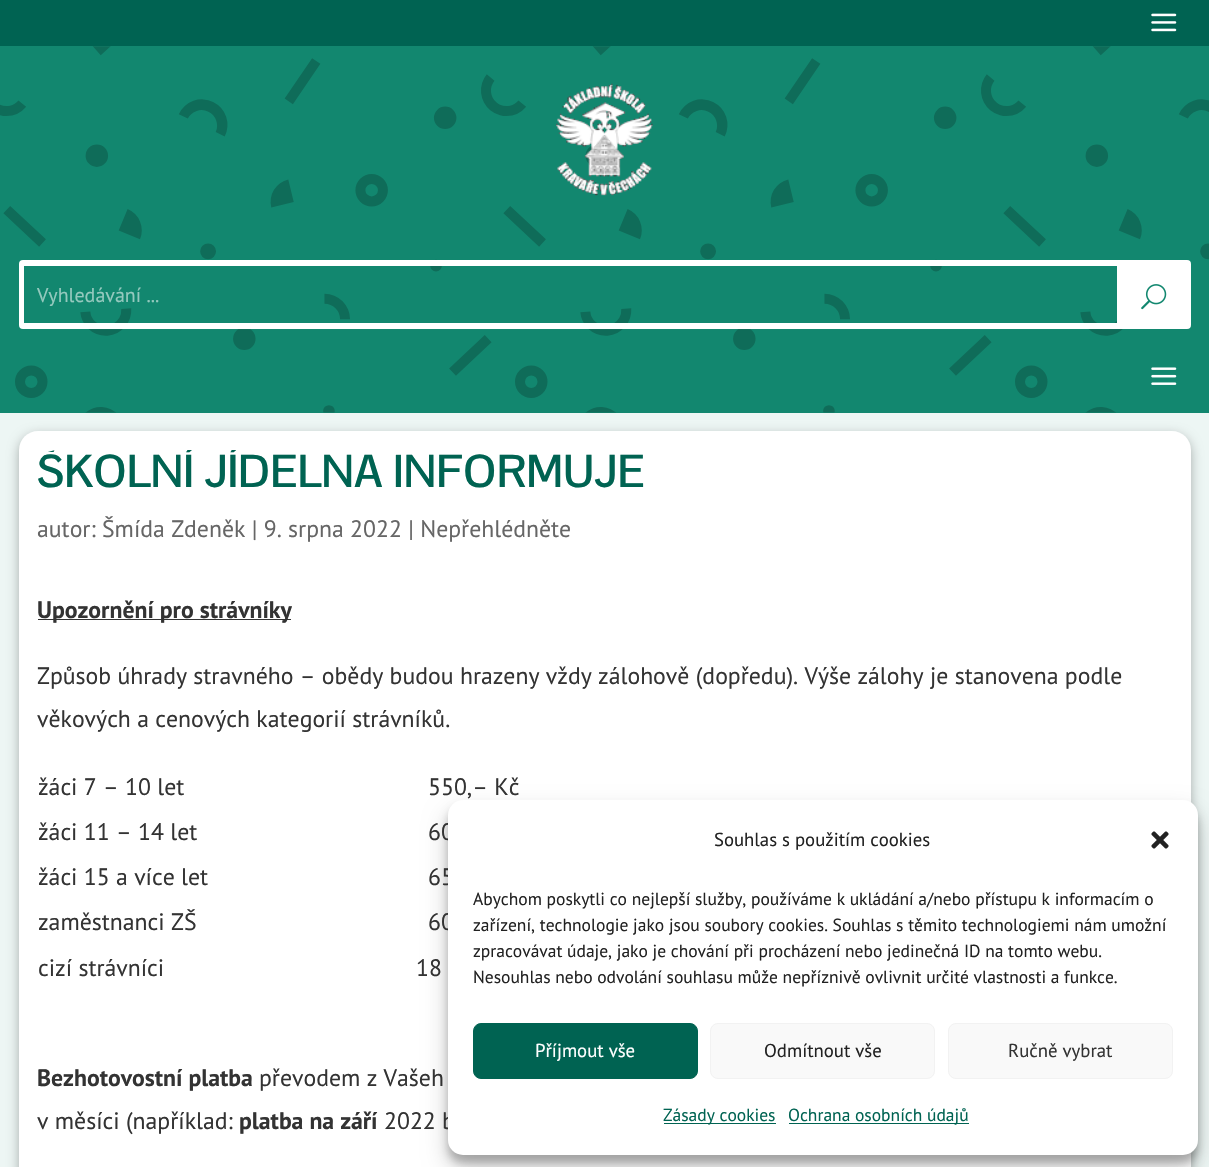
void draw(SkCanvas* canvas) {
  SkPaint paint;
  paint.setAntiAlias(true);
  auto face = [&](const char* family, int weight, float size, bool italic = false) {
    SkFontStyle style(weight, SkFontStyle::kNormal_Width,
      italic ? SkFontStyle::kItalic_Slant : SkFontStyle::kUpright_Slant);
    SkFont result(fontMgr->matchFamilyStyle(family, style), size);
    result.setSubpixel(true);
    return result;
  };
  auto paste = [&](const char* path, float x, float y, float w, float h) {
    auto image = SkImages::DeferredFromEncodedData(SkData::MakeFromFileName(path));
    canvas->drawImageRect(image, SkRect::MakeXYWH(x, y, w, h), SkSamplingOptions());
  };
  auto shape = [&](const char* data, bool evenOdd = false) {
    SkPath result = *SkParsePath::FromSVGString(data);
    if (evenOdd) result.setFillType(SkPathFillType::kEvenOdd);
    return result;
  };
  canvas->clear(0xffedf6f4);
  paint.setColor(0xff006352);
  canvas->drawRect(SkRect::MakeXYWH(0, 0, 1209, 46), paint);
  paste("img/1.png", 1151, 13, 26, 19);
  paint.setColor(0xff12876f);
  canvas->drawRect(SkRect::MakeXYWH(0, 46, 1209, 367), paint);
  paste("img/2.png", 0, 46, 1209, 367);
  paste("img/3.png", 556, 83, 97, 113);
  paint.setStroke(true);
  paint.setStrokeWidth(3);
  paint.setColor(0xffffffff);
  canvas->drawRoundRect(SkRect::MakeXYWH(20.5f, 261.5f, 1169, 66), 2.5f, 2.5f, paint);
  paint.setStroke(false);
  canvas->drawPath(shape("M22 263C21 263 21 263 21 264V325C21 326 21 326 22 326H1120V263ZM24 266V323H1117V266Z", true), paint);
  canvas->drawPath(shape("M1119 263H1188C1188.5 263 1189 263.5 1189 264V325C1189 325.5 1188.5 326 1188 326H1119Z"), paint);
  paste("img/4.png", 1141, 284, 26, 26);
  paste("img/5.png", 1151, 367, 26, 18);
  paint.setColor(0x4d000000);
  paint.setMaskFilter(SkMaskFilter::MakeBlur(kNormal_SkBlurStyle, 6));
  canvas->drawRoundRect(SkRect::MakeXYWH(19, 435, 1172, 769), 19, 19, paint);
  paint.setMaskFilter(nullptr);
  paint.setColor(0xffffffff);
  canvas->drawRoundRect(SkRect::MakeXYWH(19, 431, 1172, 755), 19, 19, paint);
  paint.setColor(0xff333333);
  canvas->drawRect(SkRect::MakeXYWH(38, 619, 253, 1), paint);
  paint.setColor(0x3b000000);
  paint.setMaskFilter(SkMaskFilter::MakeBlur(kNormal_SkBlurStyle, 4));
  canvas->drawRoundRect(SkRect::MakeXYWH(448, 808, 750, 355), 15, 15, paint);
  paint.setMaskFilter(nullptr);
  paint.setColor(0x30000000);
  paint.setMaskFilter(SkMaskFilter::MakeBlur(kNormal_SkBlurStyle, 12.5f));
  canvas->drawRoundRect(SkRect::MakeXYWH(448, 813, 750, 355), 15, 15, paint);
  paint.setMaskFilter(nullptr);
  auto f0 = face("PT Sans", 400, 20);
  paint.setColor(0xff94c9be);
  canvas->drawString("Vyhledávání ...", 37, 302, f0, paint);
  canvas->save();
  canvas->clipPath(shape("M57 450H1154C1164.5 450 1173 458.5 1173 469V550H38V469C38 458.5 46.5 450 57 450Z"), true);
  auto f1 = face("Pontano Sans", 700, 45);
  paint.setColor(0xff006352);
  canvas->drawString("ŠKOLNÍ JÍDELNA INFORMUJE", 37, 487, f1, paint);
  canvas->restore();
  auto f2 = face("PT Sans", 400, 23.75f);
  paint.setColor(0xff666666);
  canvas->drawString("autor: Šmída Zdeněk | 9. srpna 2022 | Nepřehlédněte", 37, 537, f2, paint);
  auto f3 = face("PT Sans", 700, 23.75f);
  paint.setColor(0xff333333);
  canvas->drawString("Upozornění pro strávníky", 37, 618, f3, paint);
  {
    const struct { const char* s; float x, y; } items[] = {
      {"Způsob úhrady stravného – obědy budou hrazeny vždy zálohově (dopředu). Výše zálohy je stanovena podle", 37, 684},
      {"věkových a cenových kategorií strávníků.", 37, 727},
      {"žáci 7 – 10 let", 38, 795},
      {"550,– Kč", 428, 795},
      {"žáci 11 – 14 let", 38, 840},
      {"60", 428, 840},
      {"žáci 15 a více let", 38, 885},
      {"65", 428, 885},
      {"zaměstnanci ZŠ", 38, 930},
      {"60", 428, 930},
      {"cizí strávníci", 38, 976},
      {"18", 416, 976},
    };
    for (auto [s, x, y] : items) {
      canvas->drawString(s, x, y, f2, paint);
    }
  }
  canvas->drawString("Bezhotovostní platba", 37, 1086, f3, paint);
  canvas->drawString("převodem z Vašeh", 259, 1086, f2, paint);
  canvas->drawString("v měsíci (například:", 37, 1129, f2, paint);
  canvas->drawString("platba na září", 239, 1129, f3, paint);
  canvas->drawString("2022 b", 384, 1129, f2, paint);
  paint.setColor(0xffffffff);
  canvas->drawRoundRect(SkRect::MakeXYWH(448, 800, 750, 355), 15, 15, paint);
  auto f4 = face("PT Sans", 400, 18.75f);
  paint.setColor(0xff222222);
  canvas->drawString("Souhlas s použitím cookies", 714, 846, f4, paint);
  paste("img/6.png", 1151, 831, 18, 18);
  auto f5 = face("PT Sans", 400, 17.5f);
  {
    const struct { const char* s; float x, y; } items[] = {
      {"Abychom poskytli co nejlepší služby, používáme k ukládání a/nebo přístupu k informacím o", 473, 905},
      {"zařízení, technologie jako jsou soubory cookies. Souhlas s těmito technologiemi nám umožní", 473, 931},
      {"zpracovávat údaje, jako je chování při procházení nebo jedinečná ID na tomto webu.", 473, 957},
      {"Nesouhlas nebo odvolání souhlasu může nepříznivě ovlivnit určité vlastnosti a funkce.", 473, 983},
    };
    for (auto [s, x, y] : items) {
      canvas->drawString(s, x, y, f5, paint);
    }
  }
  paint.setColor(0xff006352);
  canvas->drawRoundRect(SkRect::MakeXYWH(473.5f, 1023.5f, 224, 55), 7.5f, 7.5f, paint);
  paint.setStroke(true);
  paint.setStrokeWidth(1);
  canvas->drawRoundRect(SkRect::MakeXYWH(473.5f, 1023.5f, 224, 55), 7.5f, 7.5f, paint);
  paint.setStroke(false);
  paint.setColor(0xffffffff);
  canvas->drawString("Příjmout vše", 535, 1057, f4, paint);
  paint.setColor(0xfff9f9f9);
  canvas->drawRoundRect(SkRect::MakeXYWH(710.5f, 1023.5f, 224, 55), 7.5f, 7.5f, paint);
  paint.setStroke(true);
  paint.setColor(0xfff2f2f2);
  canvas->drawRoundRect(SkRect::MakeXYWH(710.5f, 1023.5f, 224, 55), 7.5f, 7.5f, paint);
  paint.setStroke(false);
  paint.setColor(0xff222222);
  canvas->drawString("Odmítnout vše", 764, 1057, f4, paint);
  paint.setColor(0xfff9f9f9);
  canvas->drawRoundRect(SkRect::MakeXYWH(948.5f, 1023.5f, 224, 55), 7.5f, 7.5f, paint);
  paint.setStroke(true);
  paint.setColor(0xfff2f2f2);
  canvas->drawRoundRect(SkRect::MakeXYWH(948.5f, 1023.5f, 224, 55), 7.5f, 7.5f, paint);
  paint.setStroke(false);
  paint.setColor(0xff333333);
  canvas->drawString("Ručně vybrat", 1008, 1057, f4, paint);
  paint.setColor(0xff006352);
  canvas->drawRect(SkRect::MakeXYWH(664, 1123, 112, 1), paint);
  canvas->drawString("Zásady cookies", 663, 1121, f5, paint);
  canvas->drawRect(SkRect::MakeXYWH(789, 1123, 180, 1), paint);
  canvas->drawString("Ochrana osobních údajů", 788, 1121, f5, paint);
}
